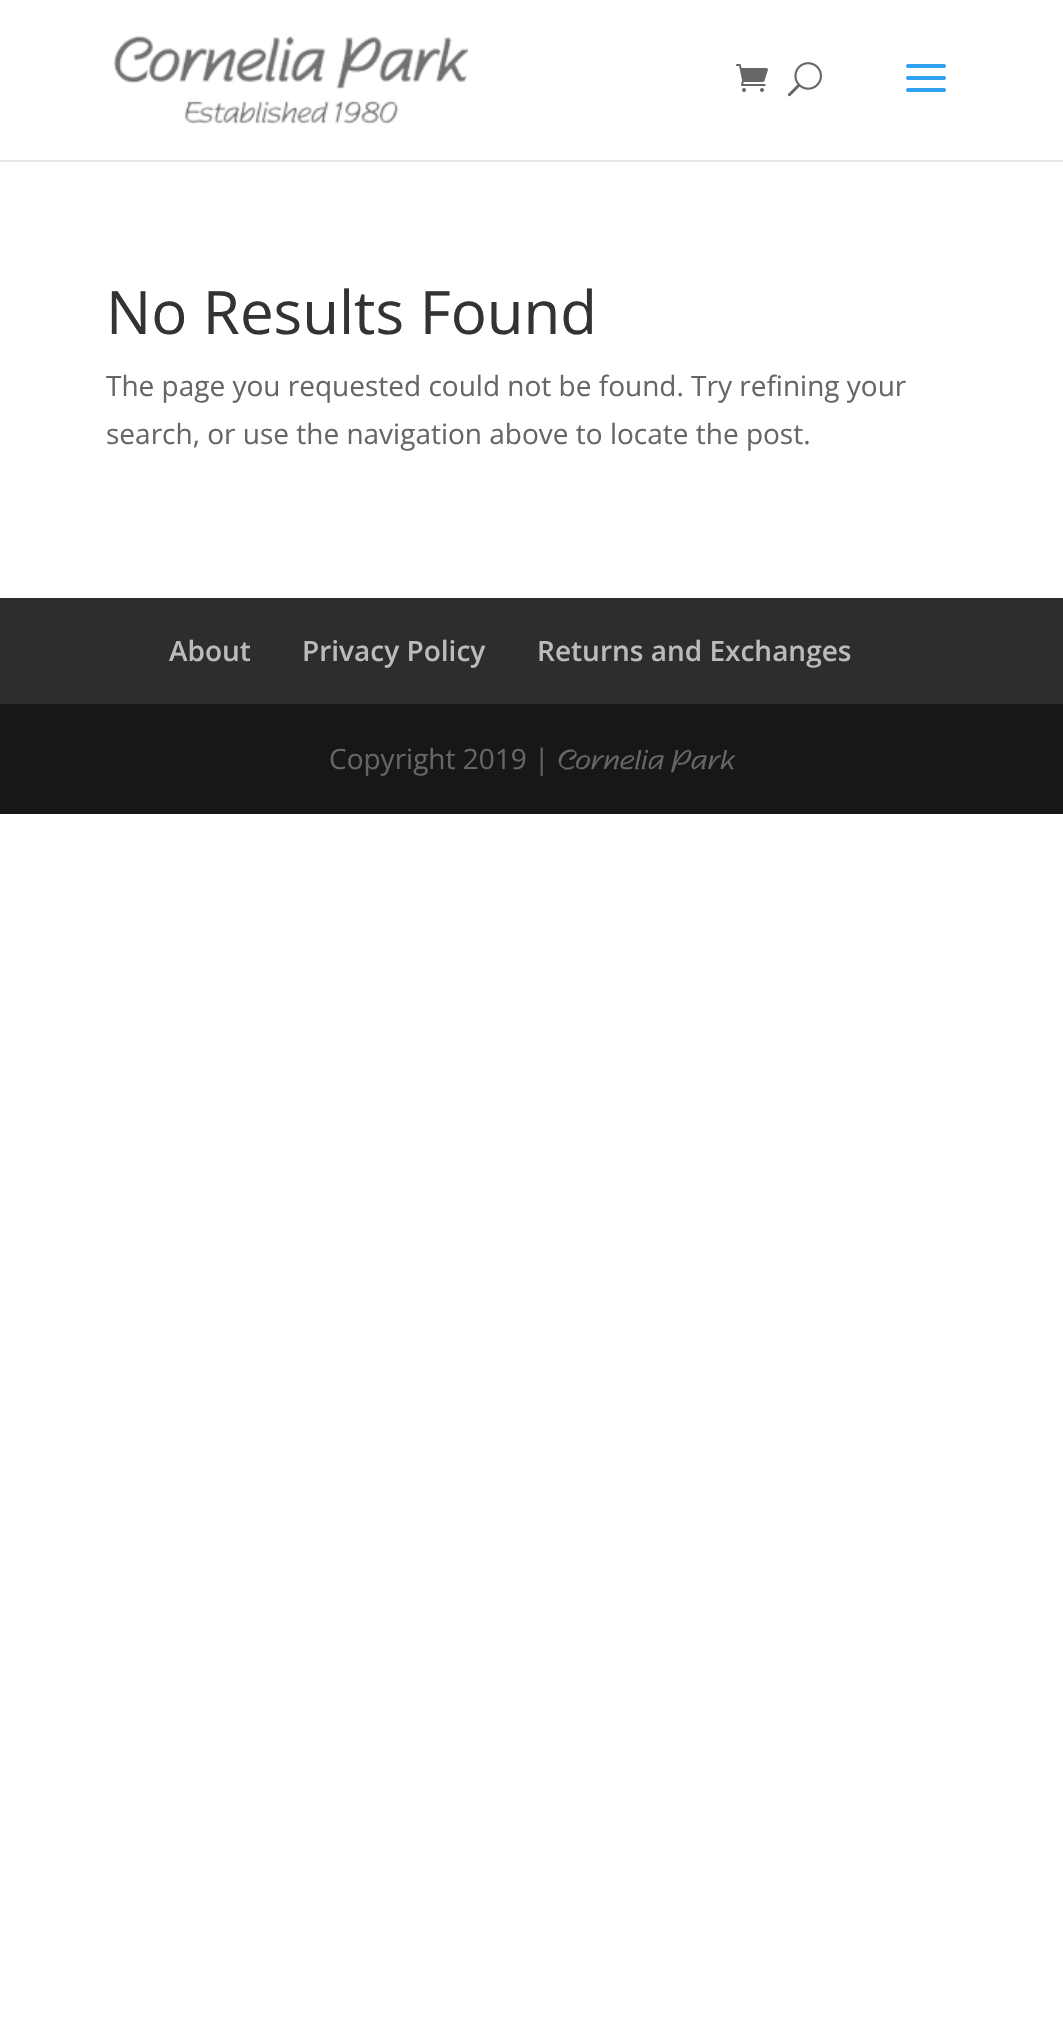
void draw(SkCanvas* canvas) {
  SkPaint paint;
  paint.setAntiAlias(true);
  auto face = [&](const char* family, int weight, float size, bool italic = false) {
    SkFontStyle style(weight, SkFontStyle::kNormal_Width,
      italic ? SkFontStyle::kItalic_Slant : SkFontStyle::kUpright_Slant);
    SkFont result(fontMgr->matchFamilyStyle(family, style), size);
    result.setSubpixel(true);
    return result;
  };
  auto paste = [&](const char* path, float x, float y, float w, float h) {
    auto image = SkImages::DeferredFromEncodedData(SkData::MakeFromFileName(path));
    canvas->drawImageRect(image, SkRect::MakeXYWH(x, y, w, h), SkSamplingOptions());
  };
  canvas->clear(0xffffffff);
  paint.setColor(0xffe6e6e6);
  canvas->drawRect(SkRect::MakeXYWH(0, 160, 1063, 2), paint);
  paste("img/1.png", 114, 36, 354, 88);
  paste("img/2.png", 736, 64, 32, 28);
  paste("img/3.png", 787, 62, 35, 35);
  paste("img/4.png", 906, 64, 40, 28);
  paint.setColor(0xff2d2d2d);
  canvas->drawRect(SkRect::MakeXYWH(0, 598, 1063, 106), paint);
  paint.setColor(0xff171717);
  canvas->drawRect(SkRect::MakeXYWH(0, 704, 1063, 110), paint);
  auto f0 = face("Open Sans", 400, 60);
  paint.setColor(0xff333333);
  canvas->drawString("No Results Found", 106, 334, f0, paint);
  auto f1 = face("Open Sans", 400, 28);
  paint.setColor(0xff666666);
  canvas->drawString("The page you requested could not be found. Try refining your", 106, 396, f1, paint);
  canvas->drawString("search, or use the navigation above to locate the post.", 106, 444, f1, paint);
  auto f2 = face("Open Sans", 600, 28);
  paint.setColor(0xffbbbbbb);
  {
    const struct { const char* s; float x, y; } items[] = {
      {"About", 169, 661},
      {"Privacy Policy", 302, 661},
      {"Returns and Exchanges", 537, 661},
    };
    for (auto [s, x, y] : items) {
      canvas->drawString(s, x, y, f2, paint);
    }
  }
  paint.setColor(0xff666666);
  canvas->drawString("Copyright 2019 |", 329, 769, f1, paint);
  auto f3 = face("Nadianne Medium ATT", 500, 28);
  canvas->drawString("Cornelia Park", 557, 769, f3, paint);
}
